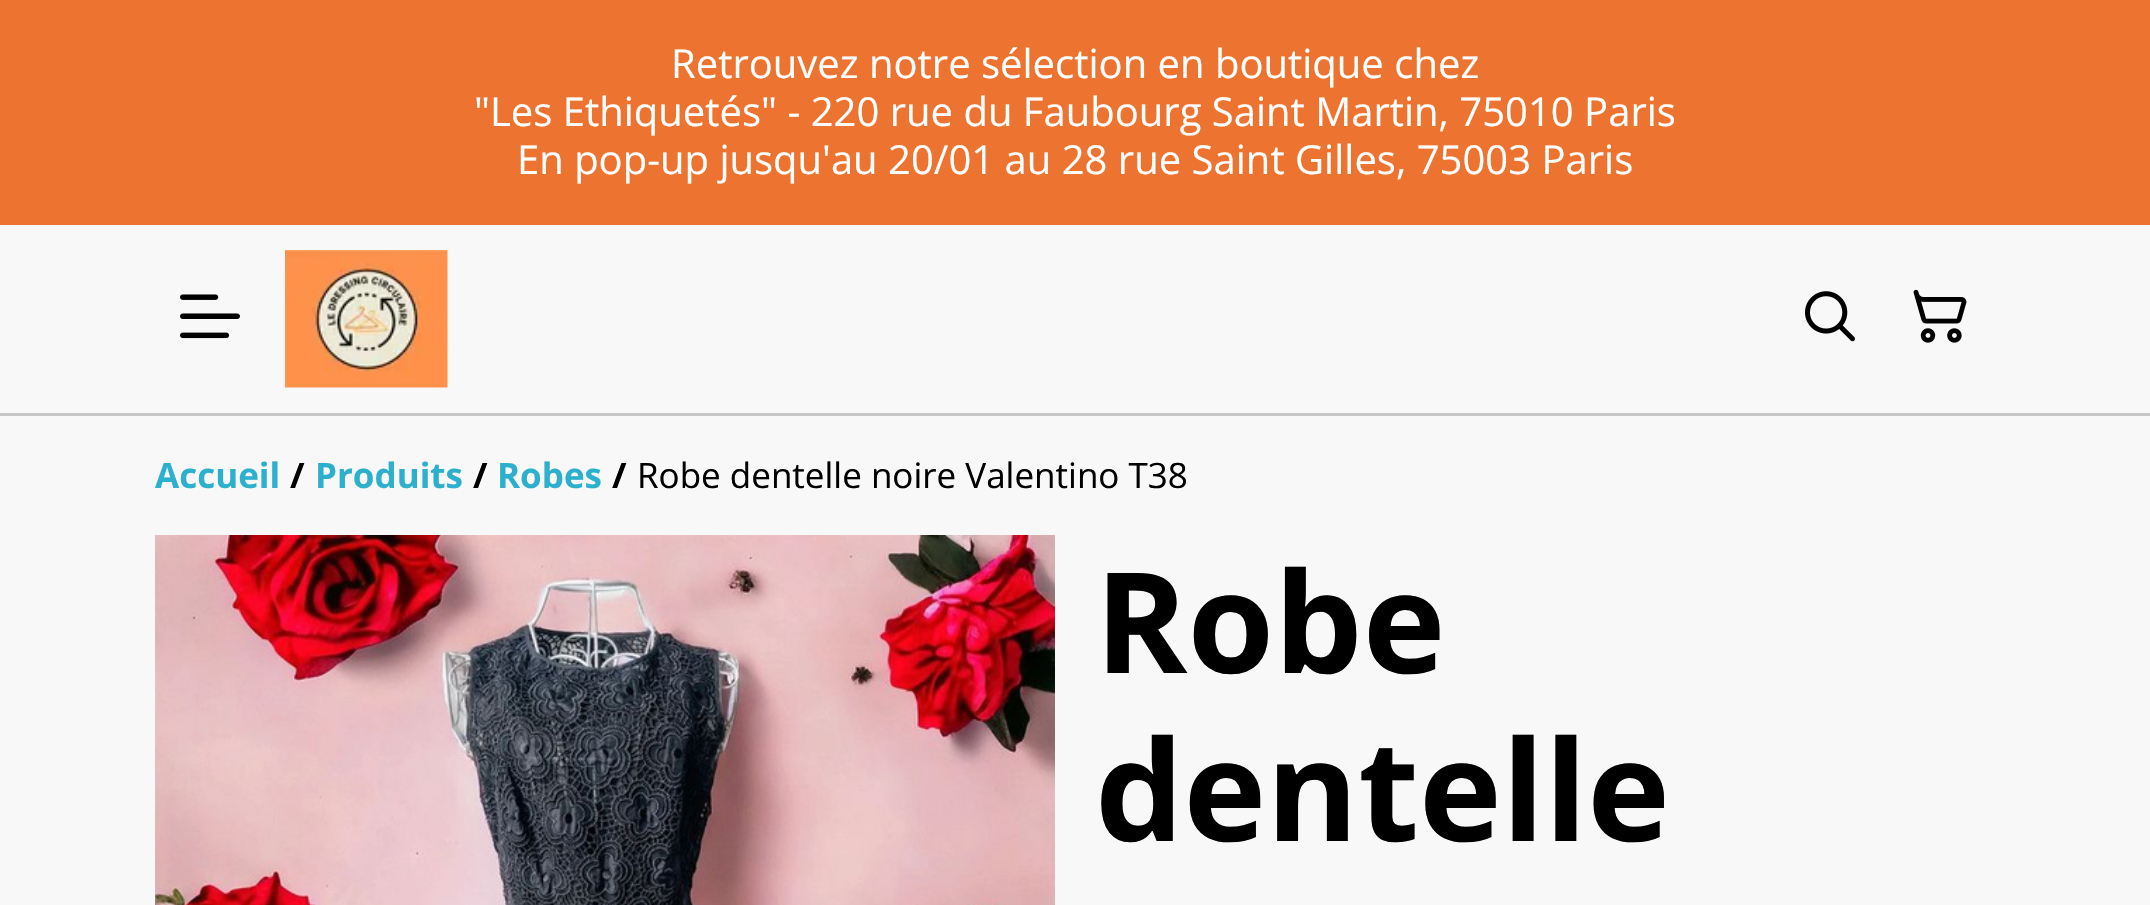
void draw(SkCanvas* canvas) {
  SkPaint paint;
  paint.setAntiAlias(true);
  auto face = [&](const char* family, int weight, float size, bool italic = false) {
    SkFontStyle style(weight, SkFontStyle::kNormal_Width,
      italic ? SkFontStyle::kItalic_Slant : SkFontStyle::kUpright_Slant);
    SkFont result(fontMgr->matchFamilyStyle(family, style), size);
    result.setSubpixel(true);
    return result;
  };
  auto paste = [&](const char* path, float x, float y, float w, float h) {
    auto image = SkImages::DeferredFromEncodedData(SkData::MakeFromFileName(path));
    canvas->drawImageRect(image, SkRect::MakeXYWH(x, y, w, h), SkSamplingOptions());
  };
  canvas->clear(0xfff8f8f8);
  paint.setColor(0xffec7430);
  canvas->drawRect(SkRect::MakeXYWH(0, 0, 2150, 225), paint);
  paint.setColor(0xffc6c6c6);
  canvas->drawRect(SkRect::MakeXYWH(0, 413, 2150, 3), paint);
  paste("img/1.png", 180, 294, 60, 45);
  paste("img/2.png", 285, 250, 163, 138);
  paste("img/3.png", 1805, 291, 50, 51);
  paste("img/4.png", 1913, 289, 54, 54);
  paste("img/5.png", 155, 535, 900, 370);
  auto f0 = face("Open Sans", 400, 40);
  paint.setColor(0xffffffff);
  {
    const struct { const char* s; float x, y; } items[] = {
      {"Retrouvez notre sélection en boutique chez", 671, 78},
      {"\"Les Ethiquetés\" - 220 rue du Faubourg Saint Martin, 75010 Paris", 474, 126},
      {"En pop-up jusqu'au 20/01 au 28 rue Saint Gilles, 75003 Paris", 517, 174},
    };
    for (auto [s, x, y] : items) {
      canvas->drawString(s, x, y, f0, paint);
    }
  }
  auto f1 = face("Open Sans", 700, 35);
  paint.setColor(0xff2db0cd);
  canvas->drawString("Accueil", 155, 488, f1, paint);
  paint.setColor(0xff000000);
  canvas->drawString("/", 290, 488, f1, paint);
  paint.setColor(0xff2db0cd);
  canvas->drawString("Produits", 315, 488, f1, paint);
  paint.setColor(0xff000000);
  canvas->drawString("/", 473, 488, f1, paint);
  paint.setColor(0xff2db0cd);
  canvas->drawString("Robes", 497, 488, f1, paint);
  paint.setColor(0xff000000);
  canvas->drawString("/", 612, 488, f1, paint);
  auto f2 = face("Open Sans", 400, 35);
  canvas->drawString("Robe dentelle noire Valentino T38", 637, 488, f2, paint);
  auto f3 = face("Open Sans", 700, 140);
  canvas->drawString("Robe", 1095, 673, f3, paint);
  canvas->drawString("dentelle", 1095, 841, f3, paint);
}
